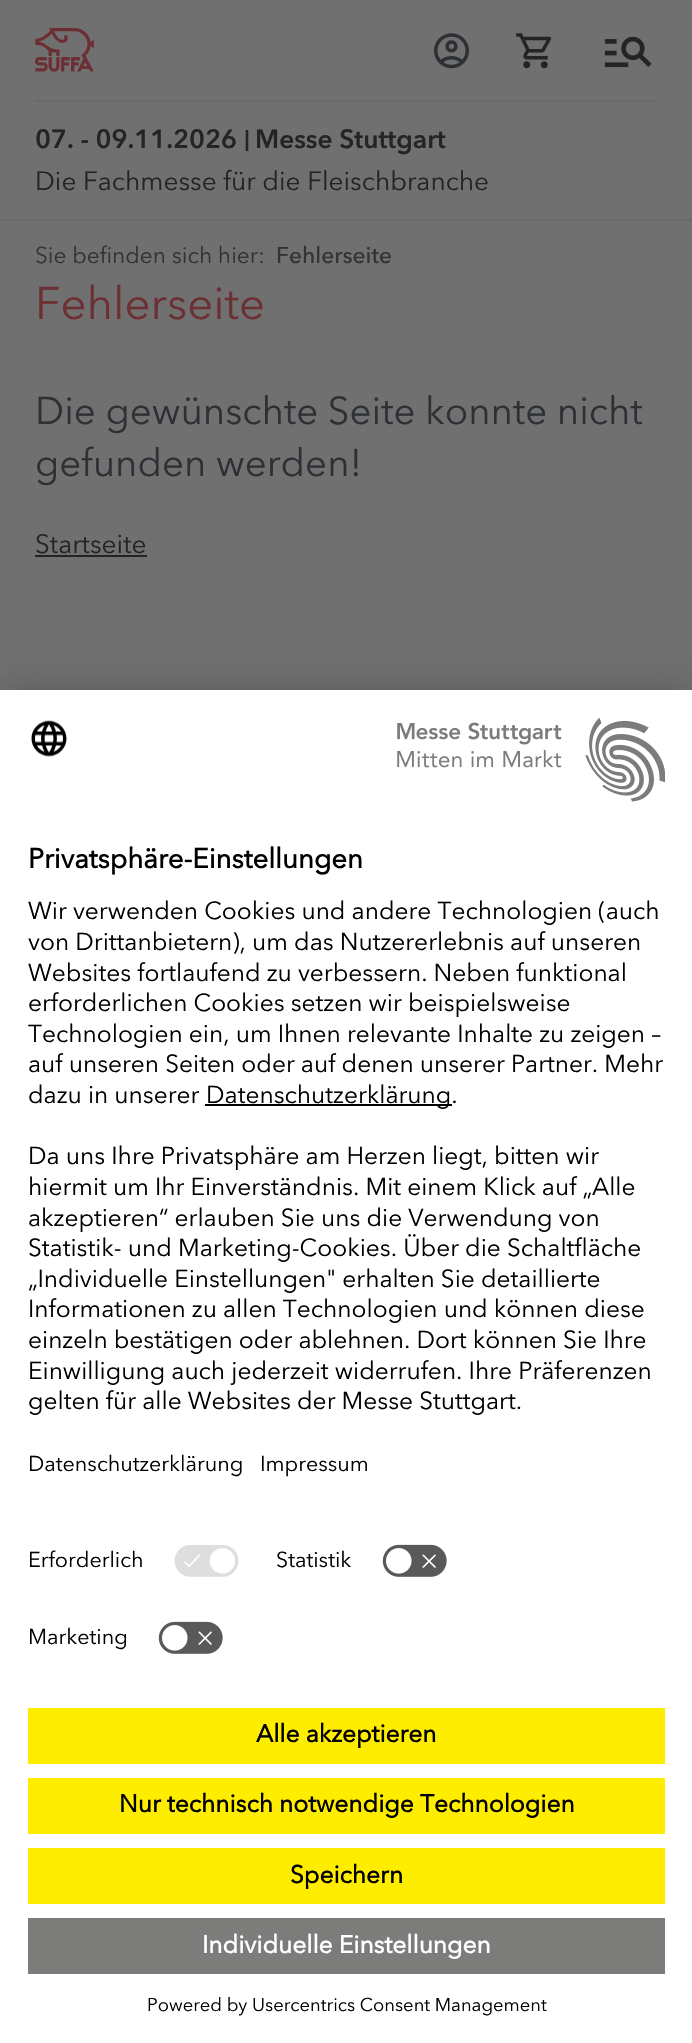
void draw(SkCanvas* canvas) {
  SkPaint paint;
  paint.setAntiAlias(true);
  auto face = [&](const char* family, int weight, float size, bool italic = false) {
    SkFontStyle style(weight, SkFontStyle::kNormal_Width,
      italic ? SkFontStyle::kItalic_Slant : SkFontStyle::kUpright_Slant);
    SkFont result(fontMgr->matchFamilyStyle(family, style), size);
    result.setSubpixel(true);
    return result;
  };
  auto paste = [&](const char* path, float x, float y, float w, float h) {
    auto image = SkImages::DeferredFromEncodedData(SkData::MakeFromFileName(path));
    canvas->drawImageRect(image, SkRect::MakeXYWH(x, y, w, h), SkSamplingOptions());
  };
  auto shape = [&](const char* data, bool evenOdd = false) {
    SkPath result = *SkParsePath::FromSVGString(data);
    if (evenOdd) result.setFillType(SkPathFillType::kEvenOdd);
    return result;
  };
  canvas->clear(0xff707070);
  paint.setColor(0xff68696a);
  canvas->drawRect(SkRect::MakeXYWH(0, 219, 692, 2), paint);
  paste("img/1.png", 35, 28, 59, 44);
  paste("img/2.png", 434, 33, 35, 36);
  paste("img/3.png", 516, 33, 36, 36);
  paste("img/4.png", 604, 36, 48, 32);
  canvas->drawRect(SkRect::MakeXYWH(35, 100, 623, 2), paint);
  canvas->save();
  canvas->clipRect(SkRect::MakeXYWH(238, 130, 18, 21));
  paint.setStroke(true);
  paint.setStrokeWidth(2.6f);
  paint.setColor(0xff242424);
  canvas->drawPath(shape("M247 129.5V304.5"), paint);
  canvas->restore();
  paint.setStroke(false);
  canvas->drawRect(SkRect::MakeXYWH(35, 555, 112, 2), paint);
  paint.setColor(0x4d000000);
  paint.setMaskFilter(SkMaskFilter::MakeBlur(kNormal_SkBlurStyle, 24.5f));
  canvas->drawRect(SkRect::MakeXYWH(0, 725, 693, 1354), paint);
  paint.setMaskFilter(nullptr);
  paint.setColor(0x38000000);
  paint.setMaskFilter(SkMaskFilter::MakeBlur(kNormal_SkBlurStyle, 23));
  canvas->drawRect(SkRect::MakeXYWH(0, 698, 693, 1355), paint);
  paint.setMaskFilter(nullptr);
  paint.setColor(0xffffffff);
  canvas->drawRect(SkRect::MakeXYWH(0, 690, 692, 1353), paint);
  paste("img/5.png", 31, 720, 36, 37);
  paste("img/6.png", 397, 718, 268, 84);
  paint.setColor(0xff000000);
  canvas->drawRect(SkRect::MakeXYWH(205, 1104, 247, 2), paint);
  paste("img/7.png", 174, 1545, 65, 32);
  paste("img/8.png", 382, 1544, 65, 33);
  paste("img/8.png", 158, 1621, 65, 33);
  {
    const struct { float x, y, w, h; SkColor color; } items[] = {
      {28, 1708, 637, 56, 0xffffed00},
      {28, 1778, 637, 56, 0xffffed00},
      {28, 1848, 637, 56, 0xffffed00},
      {28, 1918, 637, 56, 0xff7c7c7b},
    };
    for (auto [x, y, w, h, color] : items) {
      paint.setColor(color);
      canvas->drawRect(SkRect::MakeXYWH(x, y, w, h), paint);
    }
  }
  auto f0 = face("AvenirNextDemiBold", 700, 26.25f);
  paint.setColor(0xff242424);
  canvas->drawString("07. - 09.11.2026", 35, 148, f0, paint);
  canvas->drawString("Messe Stuttgart", 255, 148, f0, paint);
  auto f1 = face("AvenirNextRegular", 400, 26.25f);
  canvas->drawString("Die Fachmesse für die Fleischbranche", 35, 190, f1, paint);
  auto f2 = face("AvenirNextRegular", 400, 22.75f);
  paint.setColor(0xff333333);
  canvas->drawString("Sie befinden sich hier:", 35, 263, f2, paint);
  auto f3 = face("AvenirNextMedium", 500, 22.75f);
  canvas->drawString("Fehlerseite", 276, 263, f3, paint);
  auto f4 = face("AvenirNextRegular", 400, 45.5f);
  paint.setColor(0xff6c3034);
  canvas->drawString("Fehlerseite", 35, 319, f4, paint);
  auto f5 = face("AvenirNextRegular", 400, 38.5f);
  paint.setColor(0xff2d3034);
  canvas->drawString("Die gewünschte Seite konnte nicht", 35, 424, f5, paint);
  canvas->drawString("gefunden werden!", 35, 476, f5, paint);
  paint.setColor(0xff242424);
  canvas->drawString("Startseite", 35, 553, f1, paint);
  auto f6 = face("AvenirNextRegular", 700, 27.5f);
  paint.setColor(0xff000000);
  canvas->drawString("Privatsphäre-Einstellungen", 28, 868, f6, paint);
  auto f7 = face("AvenirNextRegular", 400, 24.5f);
  {
    const struct { const char* s; float x, y; } items[] = {
      {"Wir verwenden Cookies und andere Technologien (auch", 28, 919},
      {"von Drittanbietern), um das Nutzererlebnis auf unseren", 28, 950},
      {"Websites fortlaufend zu verbessern. Neben funktional", 28, 981},
      {"erforderlichen Cookies setzen wir beispielsweise", 28, 1011},
      {"Technologien ein, um Ihnen relevante Inhalte zu zeigen –", 28, 1042},
      {"auf unseren Seiten oder auf denen unserer Partner. Mehr", 28, 1072},
      {"dazu in unserer", 28, 1103},
      {"Datenschutzerklärung.", 206, 1103},
      {"Da uns Ihre Privatsphäre am Herzen liegt, bitten wir", 28, 1164},
      {"hiermit um Ihr Einverständnis. Mit einem Klick auf „Alle", 28, 1195},
      {"akzeptieren“ erlauben Sie uns die Verwendung von", 28, 1226},
      {"Statistik- und Marketing-Cookies. Über die Schaltfläche", 28, 1256},
      {"„Individuelle Einstellungen\" erhalten Sie detaillierte", 28, 1287},
      {"Informationen zu allen Technologien und können diese", 28, 1317},
      {"einzeln bestätigen oder ablehnen. Dort können Sie Ihre", 28, 1348},
      {"Einwilligung auch jederzeit widerrufen. Ihre Präferenzen", 28, 1379},
      {"gelten für alle Websites der Messe Stuttgart.", 28, 1409},
    };
    for (auto [s, x, y] : items) {
      canvas->drawString(s, x, y, f7, paint);
    }
  }
  auto f8 = face("AvenirNextRegular", 400, 21.5f);
  {
    const struct { const char* s; float x, y; } items[] = {
      {"Datenschutzerklärung", 28, 1471},
      {"Impressum", 260, 1471},
      {"Erforderlich", 28, 1567},
      {"Statistik", 276, 1567},
      {"Marketing", 28, 1644},
    };
    for (auto [s, x, y] : items) {
      canvas->drawString(s, x, y, f8, paint);
    }
  }
  auto f9 = face("AvenirNextRegular", 700, 24.5f);
  {
    const struct { const char* s; float x, y; } items[] = {
      {"Alle akzeptieren", 256, 1742},
      {"Nur technisch notwendige Technologien", 119, 1812},
      {"Speichern", 290, 1883},
    };
    for (auto [s, x, y] : items) {
      canvas->drawString(s, x, y, f9, paint);
    }
  }
  paint.setColor(0xffffffff);
  canvas->drawString("Individuelle Einstellungen", 202, 1953, f9, paint);
  auto f10 = face("AvenirNextRegular", 400, 18.4f);
  paint.setColor(0xff000000);
  canvas->drawString("Powered by Usercentrics Consent Management", 147, 2011, f10, paint);
}
